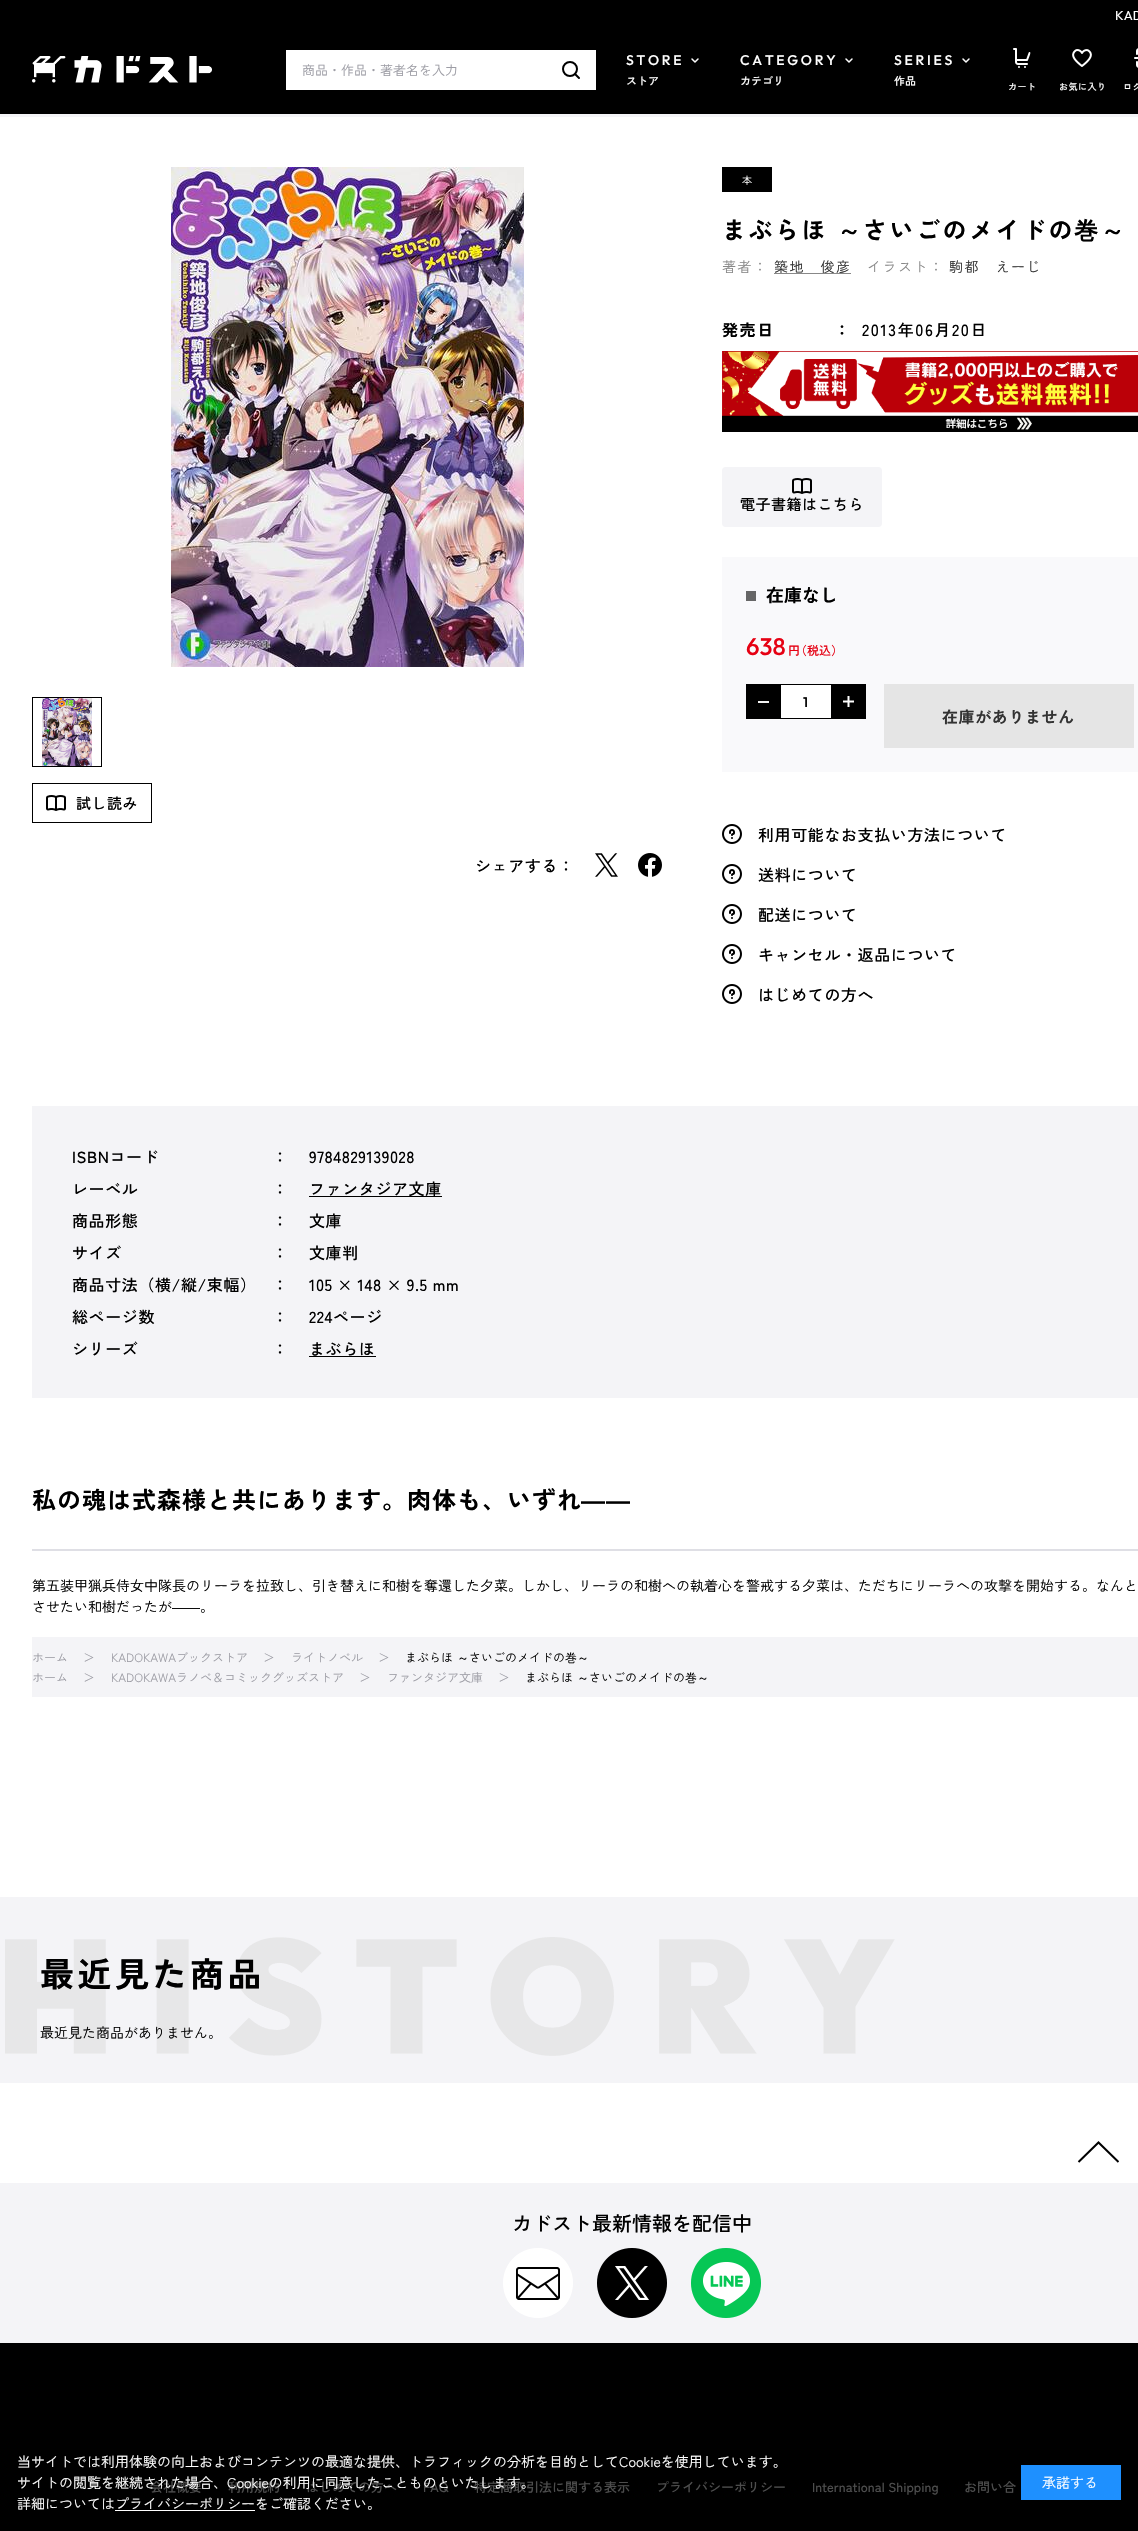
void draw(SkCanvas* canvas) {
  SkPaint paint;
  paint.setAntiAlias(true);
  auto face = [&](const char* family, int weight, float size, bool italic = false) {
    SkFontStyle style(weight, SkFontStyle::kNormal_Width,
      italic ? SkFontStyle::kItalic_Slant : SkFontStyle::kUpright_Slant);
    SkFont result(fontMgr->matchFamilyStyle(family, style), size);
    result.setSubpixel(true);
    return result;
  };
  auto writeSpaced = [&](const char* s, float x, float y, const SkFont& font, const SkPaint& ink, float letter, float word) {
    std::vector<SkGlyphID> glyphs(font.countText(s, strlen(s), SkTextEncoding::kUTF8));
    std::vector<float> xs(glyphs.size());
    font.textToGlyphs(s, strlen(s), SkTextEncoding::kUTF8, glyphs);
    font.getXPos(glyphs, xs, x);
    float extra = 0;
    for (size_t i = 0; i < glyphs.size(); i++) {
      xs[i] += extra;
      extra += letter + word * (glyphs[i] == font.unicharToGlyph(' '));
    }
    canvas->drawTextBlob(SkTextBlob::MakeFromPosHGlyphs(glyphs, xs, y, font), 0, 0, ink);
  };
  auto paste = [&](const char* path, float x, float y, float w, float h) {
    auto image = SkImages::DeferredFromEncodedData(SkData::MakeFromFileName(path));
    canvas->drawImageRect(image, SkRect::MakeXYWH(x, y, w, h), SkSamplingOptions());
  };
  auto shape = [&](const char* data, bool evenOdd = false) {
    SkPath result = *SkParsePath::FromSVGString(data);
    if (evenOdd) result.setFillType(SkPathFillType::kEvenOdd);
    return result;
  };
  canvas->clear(0xffffffff);
  paint.setColor(0xff000000);
  canvas->drawRect(SkRect::MakeXYWH(0, 0, 1138, 114), paint);
  paste("img/1.png", 32, 56, 180, 27);
  paint.setColor(0xffffffff);
  canvas->drawRect(SkRect::MakeXYWH(286, 50, 310, 40), paint);
  paint.setStroke(true);
  paint.setStrokeWidth(2);
  paint.setColor(0xff000000);
  canvas->drawCircle(570, 69, 7, paint);
  paint.setStrokeCap(SkPaint::kRound_Cap);
  paint.setStrokeJoin(SkPaint::kRound_Join);
  canvas->drawPath(shape("M575 74L579 78"), paint);
  paint.setStrokeWidth(1.5f);
  paint.setColor(0xfffefefe);
  canvas->drawPath(shape("M692 59L695 62L698 59"), paint);
  canvas->drawPath(shape("M846 59L849 62L852 59"), paint);
  canvas->drawPath(shape("M963 59L966 62L969 59"), paint);
  paste("img/2.png", 1013, 48, 18, 20);
  paste("img/3.png", 1072, 49, 20, 18);
  paste("img/4.png", 1134, 48, 4, 20);
  paint.setStroke(false);
  paint.setColor(0xfff4f4f7);
  canvas->drawRect(SkRect::MakeXYWH(0, 114, 1138, 3), paint);
  paste("img/5.png", 171, 167, 353, 500);
  paste("img/6.png", 42, 698, 50, 68);
  paint.setStroke(true);
  paint.setStrokeWidth(1);
  paint.setStrokeCap(SkPaint::kButt_Cap);
  paint.setStrokeJoin(SkPaint::kMiter_Join);
  paint.setColor(0xff000000);
  canvas->drawRect(SkRect::MakeXYWH(32.5f, 697.5f, 69, 69), paint);
  canvas->drawRect(SkRect::MakeXYWH(32.5f, 783.5f, 119, 39), paint);
  paste("img/7.png", 46, 795, 20, 16);
  paste("img/8.png", 595, 853, 23, 24);
  paste("img/9.png", 638, 853, 24, 24);
  paste("img/10.png", 722, 167, 50, 25);
  paint.setStroke(false);
  paint.setColor(0xff888888);
  canvas->drawRect(SkRect::MakeXYWH(774, 273, 77, 1), paint);
  paste("img/11.png", 722, 351, 416, 81);
  paint.setColor(0xfff4f4f7);
  canvas->drawRoundRect(SkRect::MakeXYWH(722, 467, 160, 60), 4, 4, paint);
  paste("img/12.png", 792, 478, 20, 16);
  {
    const struct { float x, y, w, h; SkColor color; } items[] = {
      {722, 557, 416, 215, 0xfff9f9fb},
      {746, 591, 10, 10, 0xff666666},
      {746, 684, 35, 35, 0xff000000},
      {758, 701, 11, 2, 0xfff2f2f2},
      {781, 685, 50, 33, 0xffffffff},
      {781, 684, 50, 1, 0xff000000},
      {781, 718, 50, 1, 0xff000000},
      {831, 684, 35, 35, 0xff000000},
    };
    for (auto [x, y, w, h, color] : items) {
      paint.setColor(color);
      canvas->drawRect(SkRect::MakeXYWH(x, y, w, h), paint);
    }
  }
  paint.setStroke(true);
  paint.setStrokeWidth(2);
  paint.setStrokeJoin(SkPaint::kRound_Join);
  paint.setColor(0xffffffff);
  canvas->drawPath(shape("M848.5 696V707M854 701.5H843"), paint);
  paint.setStroke(false);
  paint.setColor(0xffe5e5e5);
  canvas->drawRect(SkRect::MakeXYWH(884, 684, 250, 64), paint);
  paste("img/13.png", 722, 824, 20, 20);
  paste("img/13.png", 722, 864, 20, 20);
  paste("img/13.png", 722, 904, 20, 20);
  paste("img/13.png", 722, 944, 20, 20);
  paste("img/13.png", 722, 984, 20, 20);
  {
    const struct { float x, y, w, h; SkColor color; } items[] = {
      {32, 1106, 1106, 292, 0xfff4f4f7},
      {309, 1196, 133, 1, 0xff000000},
      {309, 1356, 67, 1, 0xff000000},
      {32, 1549, 1106, 2, 0xffdfdfe5},
      {32, 1637, 1106, 60, 0xfff4f4f7},
      {0, 1897, 1138, 186, 0xfff4f4f7},
    };
    for (auto [x, y, w, h, color] : items) {
      paint.setColor(color);
      canvas->drawRect(SkRect::MakeXYWH(x, y, w, h), paint);
    }
  }
  paste("img/14.png", 5, 1937, 890, 119);
  paint.setColor(0xff000000);
  canvas->drawRect(SkRect::MakeXYWH(0, 2343, 1138, 188), paint);
  paint.setStroke(true);
  paint.setStrokeJoin(SkPaint::kMiter_Join);
  canvas->drawPath(shape("M1118.5 2162L1098.5 2142.5L1078.5 2162"), paint);
  paint.setStroke(false);
  paint.setColor(0xfff4f4f7);
  canvas->drawRect(SkRect::MakeXYWH(0, 2183, 1138, 160), paint);
  paste("img/15.png", 503, 2248, 70, 70);
  paste("img/16.png", 597, 2248, 70, 70);
  paste("img/17.png", 691, 2248, 70, 70);
  paint.setColor(0xffffffff);
  canvas->drawRect(SkRect::MakeXYWH(115, 2510, 140, 1), paint);
  paint.setColor(0xff1e90ff);
  canvas->drawRect(SkRect::MakeXYWH(1021, 2465, 100, 35), paint);
  auto f0 = face("Outfit", 400, 13);
  paint.setColor(0xffffffff);
  canvas->drawString("KAD", 1115, 20, f0, paint);
  auto f1 = face("Zen Kaku Gothic New", 400, 13);
  paint.setColor(0xff9d9da5);
  canvas->drawString("商品・作品・著者名を入力", 302, 75, f1, paint);
  auto f2 = face("Outfit", 500, 14);
  paint.setColor(0xffffffff);
  writeSpaced("STORE", 626, 65, f2, paint, 2.75f, 0);
  auto f3 = face("Zen Kaku Gothic New", 500, 11);
  canvas->drawString("ストア", 626, 85, f3, paint);
  writeSpaced("CATEGORY", 740, 65, f2, paint, 2.75f, 0);
  canvas->drawString("カテゴリ", 740, 85, f3, paint);
  writeSpaced("SERIES", 894, 65, f2, paint, 2.75f, 0);
  canvas->drawString("作品", 894, 85, f3, paint);
  auto f4 = face("Zen Kaku Gothic New", 500, 9);
  {
    const struct { const char* s; float x, y; } items[] = {
      {"カート", 1008, 90},
      {"お気に入り", 1059, 90},
      {"ログ", 1123, 90},
    };
    for (auto [s, x, y] : items) {
      writeSpaced(s, x, y, f4, paint, 0.5f, 0);
    }
  }
  auto f5 = face("Zen Kaku Gothic New", 500, 15);
  paint.setColor(0xff000000);
  writeSpaced("試し読み", 76, 809, f5, paint, 0.5f, 0);
  auto f6 = face("Zen Kaku Gothic New", 500, 16);
  writeSpaced("シェアする：", 475, 872, f6, paint, 0.6f, 0);
  auto f7 = face("Zen Kaku Gothic New", 700, 24);
  writeSpaced("まぶらほ", 722, 239, f7, paint, 2.5f, 0);
  auto f8 = face("WenQuanYi Zen Hei", 700, 24);
  writeSpaced("～", 837, 239, f8, paint, 2.5f, 0);
  writeSpaced("さいごのメイドの", 863, 239, f7, paint, 2.5f, 0);
  writeSpaced("巻～", 1074, 239, f8, paint, 2.5f, 0);
  auto f9 = face("Zen Kaku Gothic New", 400, 14);
  paint.setColor(0xff888888);
  writeSpaced("著者：", 722, 272, f9, paint, 1.5f, 0);
  paint.setColor(0xff333333);
  writeSpaced("築地　俊彦", 774, 272, f9, paint, 1.5f, 0);
  paint.setColor(0xff888888);
  writeSpaced("イラスト：", 867, 272, f9, paint, 1.5f, 0);
  paint.setColor(0xff333333);
  writeSpaced("駒都　えーじ", 949, 272, f9, paint, 1.5f, 0);
  auto f10 = face("Zen Kaku Gothic New", 700, 16);
  paint.setColor(0xff000000);
  writeSpaced("発売日", 722, 336, f10, paint, 1.6f, 0);
  writeSpaced("：", 834, 336, f10, paint, 1.6f, 0);
  writeSpaced("2013年06月20日", 862, 336, f6, paint, 1.6f, 0);
  writeSpaced("電子書籍はこちら", 740, 510, f5, paint, 0.5f, 0);
  auto f11 = face("Zen Kaku Gothic New", 700, 18);
  canvas->drawString("在庫なし", 766, 602, f11, paint);
  auto f12 = face("Outfit", 500, 24);
  paint.setColor(0xffe60113);
  canvas->drawString("638", 746, 655, f12, paint);
  auto f13 = face("Zen Kaku Gothic New", 500, 12);
  canvas->drawString("円", 788, 655, f13, paint);
  canvas->drawString("（税込）", 795, 655, f13, paint);
  paint.setColor(0xff000000);
  writeSpaced("1", 803, 707, f2, paint, 1, 0);
  paint.setColor(0xff333333);
  writeSpaced("在庫がありません", 942, 723, f10, paint, 0.6f, 0);
  paint.setColor(0xff000000);
  {
    const struct { const char* s; float x, y; } items[] = {
      {"利用可能なお支払い方法について", 758, 841},
      {"送料について", 758, 881},
      {"配送について", 758, 921},
      {"キャンセル・返品について", 758, 961},
      {"はじめての方へ", 758, 1001},
      {"ISBNコード", 72, 1163},
      {"：", 272, 1163},
      {"9784829139028", 309, 1163},
      {"レーベル", 72, 1195},
      {"：", 272, 1195},
      {"ファンタジア文庫", 309, 1195},
      {"商品形態", 72, 1227},
      {"：", 272, 1227},
      {"文庫", 309, 1227},
      {"サイズ", 72, 1259},
      {"：", 272, 1259},
      {"文庫判", 309, 1259},
      {"商品寸法（横/縦/束幅）", 72, 1291},
      {"：", 272, 1291},
      {"105 × 148 × 9.5 mm", 309, 1291},
      {"総ページ数", 72, 1323},
      {"：", 272, 1323},
      {"224ページ", 309, 1323},
      {"シリーズ", 72, 1355},
      {"：", 272, 1355},
      {"まぶらほ", 309, 1355},
    };
    for (auto [s, x, y] : items) {
      writeSpaced(s, x, y, f6, paint, 0.6f, 0);
    }
  }
  writeSpaced("私の魂は式森様と共にあります。肉体も、いずれ", 32, 1509, f7, paint, 1, 0);
  auto f14 = face("Liberation Sans", 700, 24);
  writeSpaced("――", 581, 1509, f14, paint, 1, 0);
  canvas->drawString("第五装甲猟兵侍女中隊長のリーラを拉致し、引き替えに和樹を奪還した夕菜。しかし、リーラの和樹への執着心を警戒する夕菜は、ただちにリーラへの攻撃を開始する。なんと", 32, 1591, f9, paint);
  canvas->drawString("させたい和樹だったが", 32, 1612, f9, paint);
  auto f15 = face("Liberation Sans", 400, 14);
  canvas->drawString("――", 172, 1612, f15, paint);
  canvas->drawString("。", 200, 1612, f9, paint);
  auto f16 = face("Zen Kaku Gothic New", 400, 12);
  paint.setColor(0xff9d9da5);
  {
    const struct { const char* s; float x, y; } items[] = {
      {"ホーム", 32, 1662},
      {"＞", 83, 1662},
      {"KADOKAWAブックストア", 111, 1662},
      {"＞", 263, 1662},
      {"ライトノベル", 291, 1662},
      {"＞", 378, 1662},
    };
    for (auto [s, x, y] : items) {
      canvas->drawString(s, x, y, f16, paint);
    }
  }
  paint.setColor(0xff000000);
  canvas->drawString("まぶらほ", 405, 1662, f16, paint);
  auto f17 = face("WenQuanYi Zen Hei", 500, 12);
  canvas->drawString("～", 457, 1662, f17, paint);
  canvas->drawString("さいごのメイドの", 469, 1662, f16, paint);
  canvas->drawString("巻～", 565, 1662, f17, paint);
  paint.setColor(0xff9d9da5);
  {
    const struct { const char* s; float x, y; } items[] = {
      {"ホーム", 32, 1682},
      {"＞", 83, 1682},
      {"KADOKAWAラノベ＆コミックグッズストア", 111, 1682},
      {"＞", 359, 1682},
      {"ファンタジア文庫", 387, 1682},
      {"＞", 498, 1682},
    };
    for (auto [s, x, y] : items) {
      canvas->drawString(s, x, y, f16, paint);
    }
  }
  paint.setColor(0xff000000);
  canvas->drawString("まぶらほ", 525, 1682, f16, paint);
  canvas->drawString("～", 577, 1682, f17, paint);
  canvas->drawString("さいごのメイドの", 589, 1682, f16, paint);
  canvas->drawString("巻～", 685, 1682, f17, paint);
  auto f18 = face("Zen Kaku Gothic New", 700, 34);
  writeSpaced("最近見た商品", 40, 1987, f18, paint, 3.5f, 0);
  canvas->drawString("最近見た商品がありません。", 40, 2038, f9, paint);
  auto f19 = face("Zen Kaku Gothic New", 500, 20);
  canvas->drawString("カドスト最新情報を配信中", 512, 2231, f19, paint);
  auto f20 = face("Zen Kaku Gothic New", 500, 13);
  paint.setColor(0xff4d4d4d);
  {
    const struct { const char* s; float x, y; } items[] = {
      {"会社概要", 150, 2492},
      {"利用規約", 228, 2492},
      {"はじめての方へ", 306, 2492},
      {"FAQ", 423, 2492},
      {"特定商取引法に関する表示", 474, 2492},
      {"プライバシーポリシー", 656, 2492},
      {"International Shipping", 812, 2492},
      {"お問い合", 964, 2492},
    };
    for (auto [s, x, y] : items) {
      canvas->drawString(s, x, y, f20, paint);
    }
  }
  paint.setColor(0xffffffff);
  {
    const struct { const char* s; float x, y; } items[] = {
      {"当サイトでは利用体験の向上およびコンテンツの最適な提供、トラフィックの分析を目的としてCookieを使用しています。", 17, 2467},
      {"サイトの閲覧を継続された場合、Cookieの利用に同意したことものといたします。", 17, 2488},
      {"詳細についてはプライバシーポリシーをご確認ください。", 17, 2509},
      {"承諾する", 1042, 2488},
    };
    for (auto [s, x, y] : items) {
      canvas->drawString(s, x, y, f9, paint);
    }
  }
}
